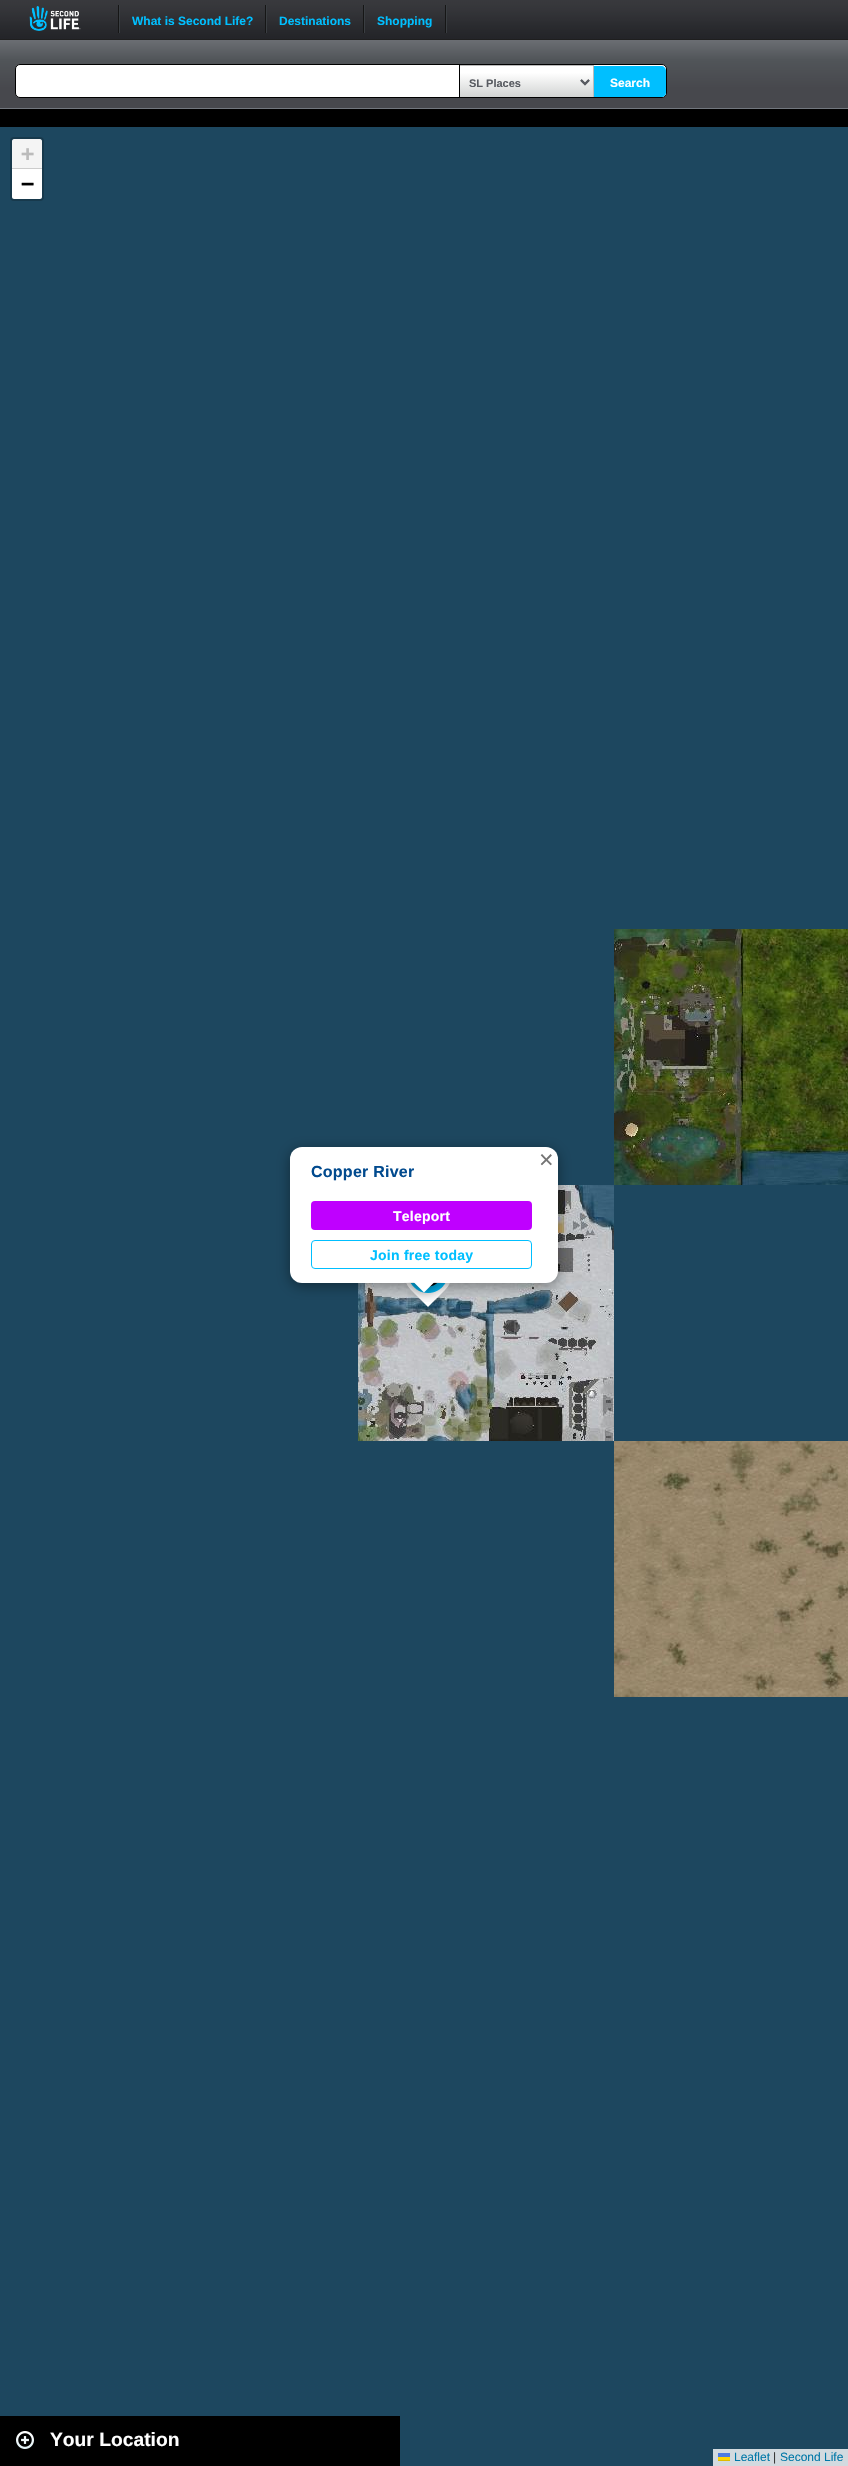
void draw(SkCanvas* canvas) {
  SkPaint paint;
  paint.setAntiAlias(true);
  auto face = [&](const char* family, int weight, float size, bool italic = false) {
    SkFontStyle style(weight, SkFontStyle::kNormal_Width,
      italic ? SkFontStyle::kItalic_Slant : SkFontStyle::kUpright_Slant);
    SkFont result(fontMgr->matchFamilyStyle(family, style), size);
    result.setSubpixel(true);
    return result;
  };
  auto writeSpaced = [&](const char* s, float x, float y, const SkFont& font, const SkPaint& ink, float letter, float word) {
    std::vector<SkGlyphID> glyphs(font.countText(s, strlen(s), SkTextEncoding::kUTF8));
    std::vector<float> xs(glyphs.size());
    font.textToGlyphs(s, strlen(s), SkTextEncoding::kUTF8, glyphs);
    font.getXPos(glyphs, xs, x);
    float extra = 0;
    for (size_t i = 0; i < glyphs.size(); i++) {
      xs[i] += extra;
      extra += letter + word * (glyphs[i] == font.unicharToGlyph(' '));
    }
    canvas->drawTextBlob(SkTextBlob::MakeFromPosHGlyphs(glyphs, xs, y, font), 0, 0, ink);
  };
  auto paste = [&](const char* path, float x, float y, float w, float h) {
    auto image = SkImages::DeferredFromEncodedData(SkData::MakeFromFileName(path));
    canvas->drawImageRect(image, SkRect::MakeXYWH(x, y, w, h), SkSamplingOptions());
  };
  auto shape = [&](const char* data, bool evenOdd = false) {
    SkPath result = *SkParsePath::FromSVGString(data);
    if (evenOdd) result.setFillType(SkPathFillType::kEvenOdd);
    return result;
  };
  canvas->clear(0xff000000);
  paste("img/1.png", 0, 0, 848, 40);
  paste("img/2.png", 29, 6, 52, 25);
  {
    const struct { float x, y, w, h; SkColor color; } items[] = {
      {119, 5, 1, 28, 0xff3a3e42},
      {118, 5, 1, 28, 0xff161616},
      {266, 5, 1, 28, 0xff3a3e42},
      {265, 5, 1, 28, 0xff161616},
      {364, 5, 1, 28, 0xff3a3e42},
      {363, 5, 1, 28, 0xff161616},
      {446, 5, 1, 28, 0xff3a3e42},
      {445, 5, 1, 28, 0xff161616},
    };
    for (auto [x, y, w, h, color] : items) {
      paint.setColor(color);
      canvas->drawRect(SkRect::MakeXYWH(x, y, w, h), paint);
    }
  }
  {
    const SkColor colors[] = {0xff47484d, 0xff515559, 0xff6b6e73};
    const float stops[] = {0.29f, 0.71f, 1};
    const SkPoint ends[] = {{0, 108}, {0, 40}};
    paint.setShader(SkGradientShader::MakeLinear(ends, colors, stops, 3, SkTileMode::kClamp));
    paint.setAlpha(255);
  }
  canvas->drawRect(SkRect::MakeXYWH(0, 40, 848, 68), paint);
  paint.setShader(nullptr);
  paint.setColor(0xff72777e);
  canvas->drawRect(SkRect::MakeXYWH(0, 108, 848, 1), paint);
  paint.setColor(0xffffffff);
  canvas->drawRoundRect(SkRect::MakeXYWH(15.5f, 64.5f, 651, 33), 4.5f, 4.5f, paint);
  paint.setStroke(true);
  paint.setStrokeWidth(1);
  paint.setColor(0xff000000);
  canvas->drawRoundRect(SkRect::MakeXYWH(15.5f, 64.5f, 651, 33), 4.5f, 4.5f, paint);
  paste("img/3.png", 460, 66, 133, 31);
  paint.setStroke(false);
  {
    const struct { float x, y, w, h; SkColor color; } items[] = {
      {459, 65, 135, 1, 0xffbbbbbb},
      {593, 65, 1, 32, 0xffbbbbbb},
      {459, 65, 1, 32, 0xff000000},
    };
    for (auto [x, y, w, h, color] : items) {
      paint.setColor(color);
      canvas->drawRect(SkRect::MakeXYWH(x, y, w, h), paint);
    }
  }
  paint.setStroke(true);
  paint.setStrokeWidth(2);
  paint.setColor(0xff595c62);
  canvas->drawPath(shape("M581 80L585 84L589 80"), paint);
  canvas->save();
  canvas->clipPath(shape("M20 65H662C664 65 666 67 666 69V93C666 95 664 97 662 97H20C18 97 16 95 16 93V69C16 67 18 65 20 65Z"), true);
  paint.setStroke(false);
  paint.setColor(0xff00bfff);
  canvas->drawPath(shape("M594 66H661C664 66 666 68 666 71V95C666 98 664 100 661 100H594Z"), paint);
  canvas->restore();
  paint.setColor(0xff1d475f);
  canvas->drawRect(SkRect::MakeXYWH(0, 127, 848, 2339), paint);
  paint.setStroke(true);
  paint.setColor(0xff17394c);
  canvas->drawRoundRect(SkRect::MakeXYWH(11, 138, 32, 62), 3, 3, paint);
  paint.setStroke(false);
  paint.setColor(0xfff4f4f4);
  canvas->drawPath(shape("M14 139H40C41 139 42 140 42 141V169H12V141C12 140 13 139 14 139Z"), paint);
  paint.setColor(0xffcccccc);
  canvas->drawRect(SkRect::MakeXYWH(12, 168, 30, 1), paint);
  paint.setColor(0xffffffff);
  canvas->drawPath(shape("M12 169H42V197C42 198 41 199 40 199H14C13 199 12 198 12 197Z"), paint);
  {
    const struct { float x, y, w, h; SkColor color; } items[] = {
      {713, 2449, 135, 17, 0xffd2dadf},
      {718, 2453, 12, 4, 0xff4c7be1},
      {718, 2457, 12, 3, 0xffffd500},
      {718, 2460, 12, 1, 0xffe0bc00},
    };
    for (auto [x, y, w, h, color] : items) {
      paint.setColor(color);
      canvas->drawRect(SkRect::MakeXYWH(x, y, w, h), paint);
    }
  }
  paste("img/4.png", 614, 929, 234, 256);
  paste("img/5.png", 358, 1185, 256, 256);
  paste("img/6.png", 614, 1441, 234, 256);
  paste("img/7.png", 406, 1283, 44, 24);
  paint.setColor(0x66000000);
  paint.setMaskFilter(SkMaskFilter::MakeBlur(kNormal_SkBlurStyle, 7));
  canvas->drawRoundRect(SkRect::MakeXYWH(290, 1150, 268, 136), 12, 12, paint);
  paint.setMaskFilter(nullptr);
  paint.setColor(0xffffffff);
  canvas->drawRoundRect(SkRect::MakeXYWH(290, 1147, 268, 136), 12, 12, paint);
  paint.setColor(0xffbf00ff);
  canvas->drawRoundRect(SkRect::MakeXYWH(311, 1201, 221, 29), 4, 4, paint);
  paint.setStroke(true);
  paint.setStrokeWidth(1);
  paint.setColor(0xff00bfff);
  canvas->drawRoundRect(SkRect::MakeXYWH(311.5f, 1240.5f, 220, 28), 3.5f, 3.5f, paint);
  canvas->save();
  canvas->clipRect(SkRect::MakeXYWH(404, 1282, 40, 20));
  paint.setStroke(false);
  paint.setColor(0x66000000);
  paint.setMaskFilter(SkMaskFilter::MakeBlur(kNormal_SkBlurStyle, 7));
  canvas->drawRect(SkRect::MakeXYWH(416, 1275, 17, 17), paint);
  paint.setMaskFilter(nullptr);
  canvas->restore();
  canvas->save();
  canvas->clipRect(SkRect::MakeXYWH(404, 1282, 40, 20));
  paint.setColor(0xffffffff);
  canvas->drawPath(shape("M424 1268.5L436 1280.5L424 1292.5L412 1280.5Z"), paint);
  canvas->restore();
  paint.setColor(0xff000000);
  canvas->drawRect(SkRect::MakeXYWH(0, 2416, 400, 50), paint);
  paste("img/8.png", 16, 2431, 18, 18);
  auto f0 = face("Liberation Sans", 700, 12);
  paint.setColor(0xff00bfff);
  {
    const struct { const char* s; float x, y; } items[] = {
      {"What is Second Life?", 132, 25},
      {"Destinations", 279, 25},
      {"Shopping", 377, 25},
    };
    for (auto [s, x, y] : items) {
      canvas->drawString(s, x, y, f0, paint);
    }
  }
  auto f1 = face("Liberation Sans", 700, 11);
  paint.setColor(0xff595c62);
  canvas->drawString("SL Places", 469, 87, f1, paint);
  paint.setColor(0xffffffff);
  canvas->drawString("Search", 610, 87, f0, paint);
  auto f2 = face("DejaVu Sans Mono", 700, 22);
  paint.setColor(0xffbbbbbb);
  canvas->drawString("+", 21, 161, f2, paint);
  paint.setColor(0xff000000);
  canvas->drawString("−", 21, 191, f2, paint);
  auto f3 = face("Liberation Sans", 400, 12);
  paint.setColor(0xff0078a8);
  canvas->drawString("Leaflet", 734, 2461, f3, paint);
  paint.setColor(0xff333333);
  canvas->drawString("|", 773, 2461, f3, paint);
  paint.setColor(0xff0078a8);
  canvas->drawString("Second Life", 780, 2461, f3, paint);
  auto f4 = face("Liberation Sans", 400, 25);
  paint.setColor(0xff757575);
  canvas->drawString("×", 539, 1168, f4, paint);
  auto f5 = face("Liberation Sans", 700, 16);
  paint.setColor(0xff014a8e);
  writeSpaced("Copper River", 311, 1177, f5, paint, 0.25f, 0);
  auto f6 = face("Liberation Sans", 700, 14);
  paint.setColor(0xffffffff);
  writeSpaced("Teleport", 393, 1221, f6, paint, 0.25f, 0);
  paint.setColor(0xff00bfff);
  writeSpaced("Join free today", 370, 1260, f6, paint, 0.25f, 0);
  auto f7 = face("Liberation Sans", 700, 19.25f);
  paint.setColor(0xffffffff);
  canvas->drawString("Your Location", 50, 2446, f7, paint);
}
